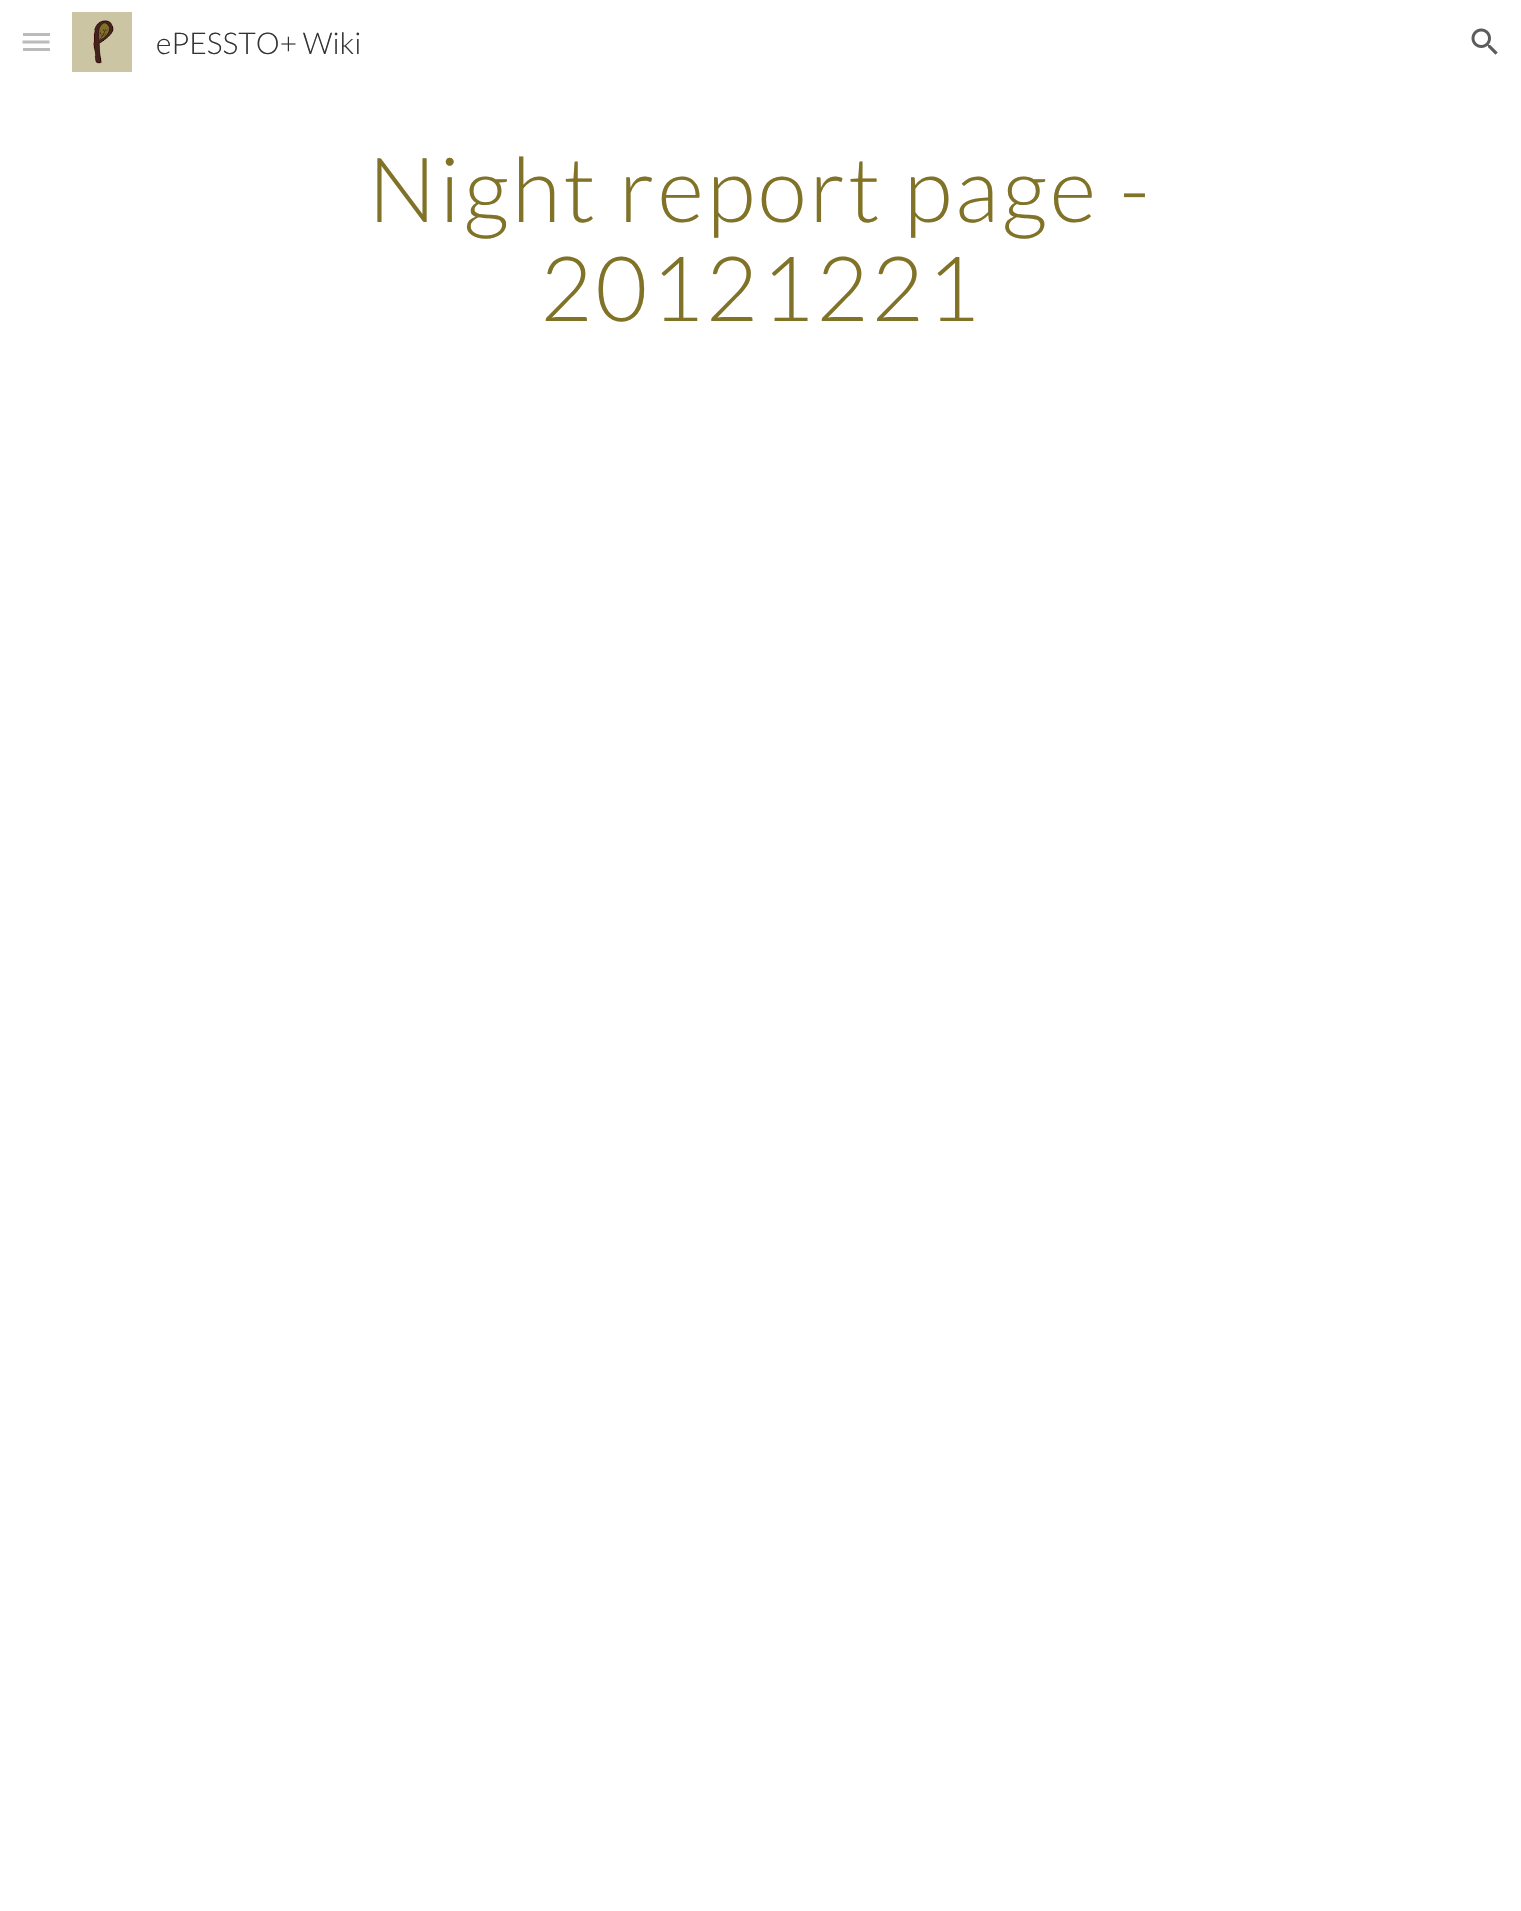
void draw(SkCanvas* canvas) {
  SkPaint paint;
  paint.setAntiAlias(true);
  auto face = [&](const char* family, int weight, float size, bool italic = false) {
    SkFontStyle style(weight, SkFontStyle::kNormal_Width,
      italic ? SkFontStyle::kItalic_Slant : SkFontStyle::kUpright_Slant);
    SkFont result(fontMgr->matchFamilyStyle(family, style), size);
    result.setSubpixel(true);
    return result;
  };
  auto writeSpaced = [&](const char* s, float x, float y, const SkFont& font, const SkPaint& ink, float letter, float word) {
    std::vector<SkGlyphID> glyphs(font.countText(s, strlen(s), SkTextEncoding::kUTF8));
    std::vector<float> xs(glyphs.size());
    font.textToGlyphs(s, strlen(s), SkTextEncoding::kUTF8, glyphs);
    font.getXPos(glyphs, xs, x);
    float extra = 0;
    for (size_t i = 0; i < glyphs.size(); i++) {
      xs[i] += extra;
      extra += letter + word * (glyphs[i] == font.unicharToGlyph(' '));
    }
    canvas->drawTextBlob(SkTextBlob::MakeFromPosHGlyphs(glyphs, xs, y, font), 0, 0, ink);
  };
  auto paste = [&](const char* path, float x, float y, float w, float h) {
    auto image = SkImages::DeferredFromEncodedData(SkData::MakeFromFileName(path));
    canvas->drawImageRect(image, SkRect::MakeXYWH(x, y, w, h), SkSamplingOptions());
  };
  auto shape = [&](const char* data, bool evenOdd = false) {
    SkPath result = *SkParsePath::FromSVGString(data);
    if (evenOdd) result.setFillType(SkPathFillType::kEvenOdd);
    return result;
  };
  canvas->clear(0xffffffff);
  paint.setColor(0xffbbbbbb);
  canvas->drawRect(SkRect::MakeXYWH(23, 33, 27, 3), paint);
  paint.setStroke(true);
  paint.setStrokeWidth(3);
  canvas->drawPath(shape("M22.5 42H49.5"), paint);
  paint.setStroke(false);
  canvas->drawRect(SkRect::MakeXYWH(23, 48, 27, 3), paint);
  paste("img/1.png", 72, 12, 60, 60);
  paste("img/2.png", 1471, 28, 27, 27);
  auto f0 = face("Lato", 300, 30);
  paint.setColor(0xff333333);
  canvas->drawString("ePESSTO+ Wiki", 156, 54, f0, paint);
  auto f1 = face("Lato", 300, 90);
  paint.setColor(0xff807227);
  writeSpaced("Night report page -", 368, 222, f1, paint, 3, 0);
  writeSpaced("20121221", 540, 321, f1, paint, 3, 0);
}
